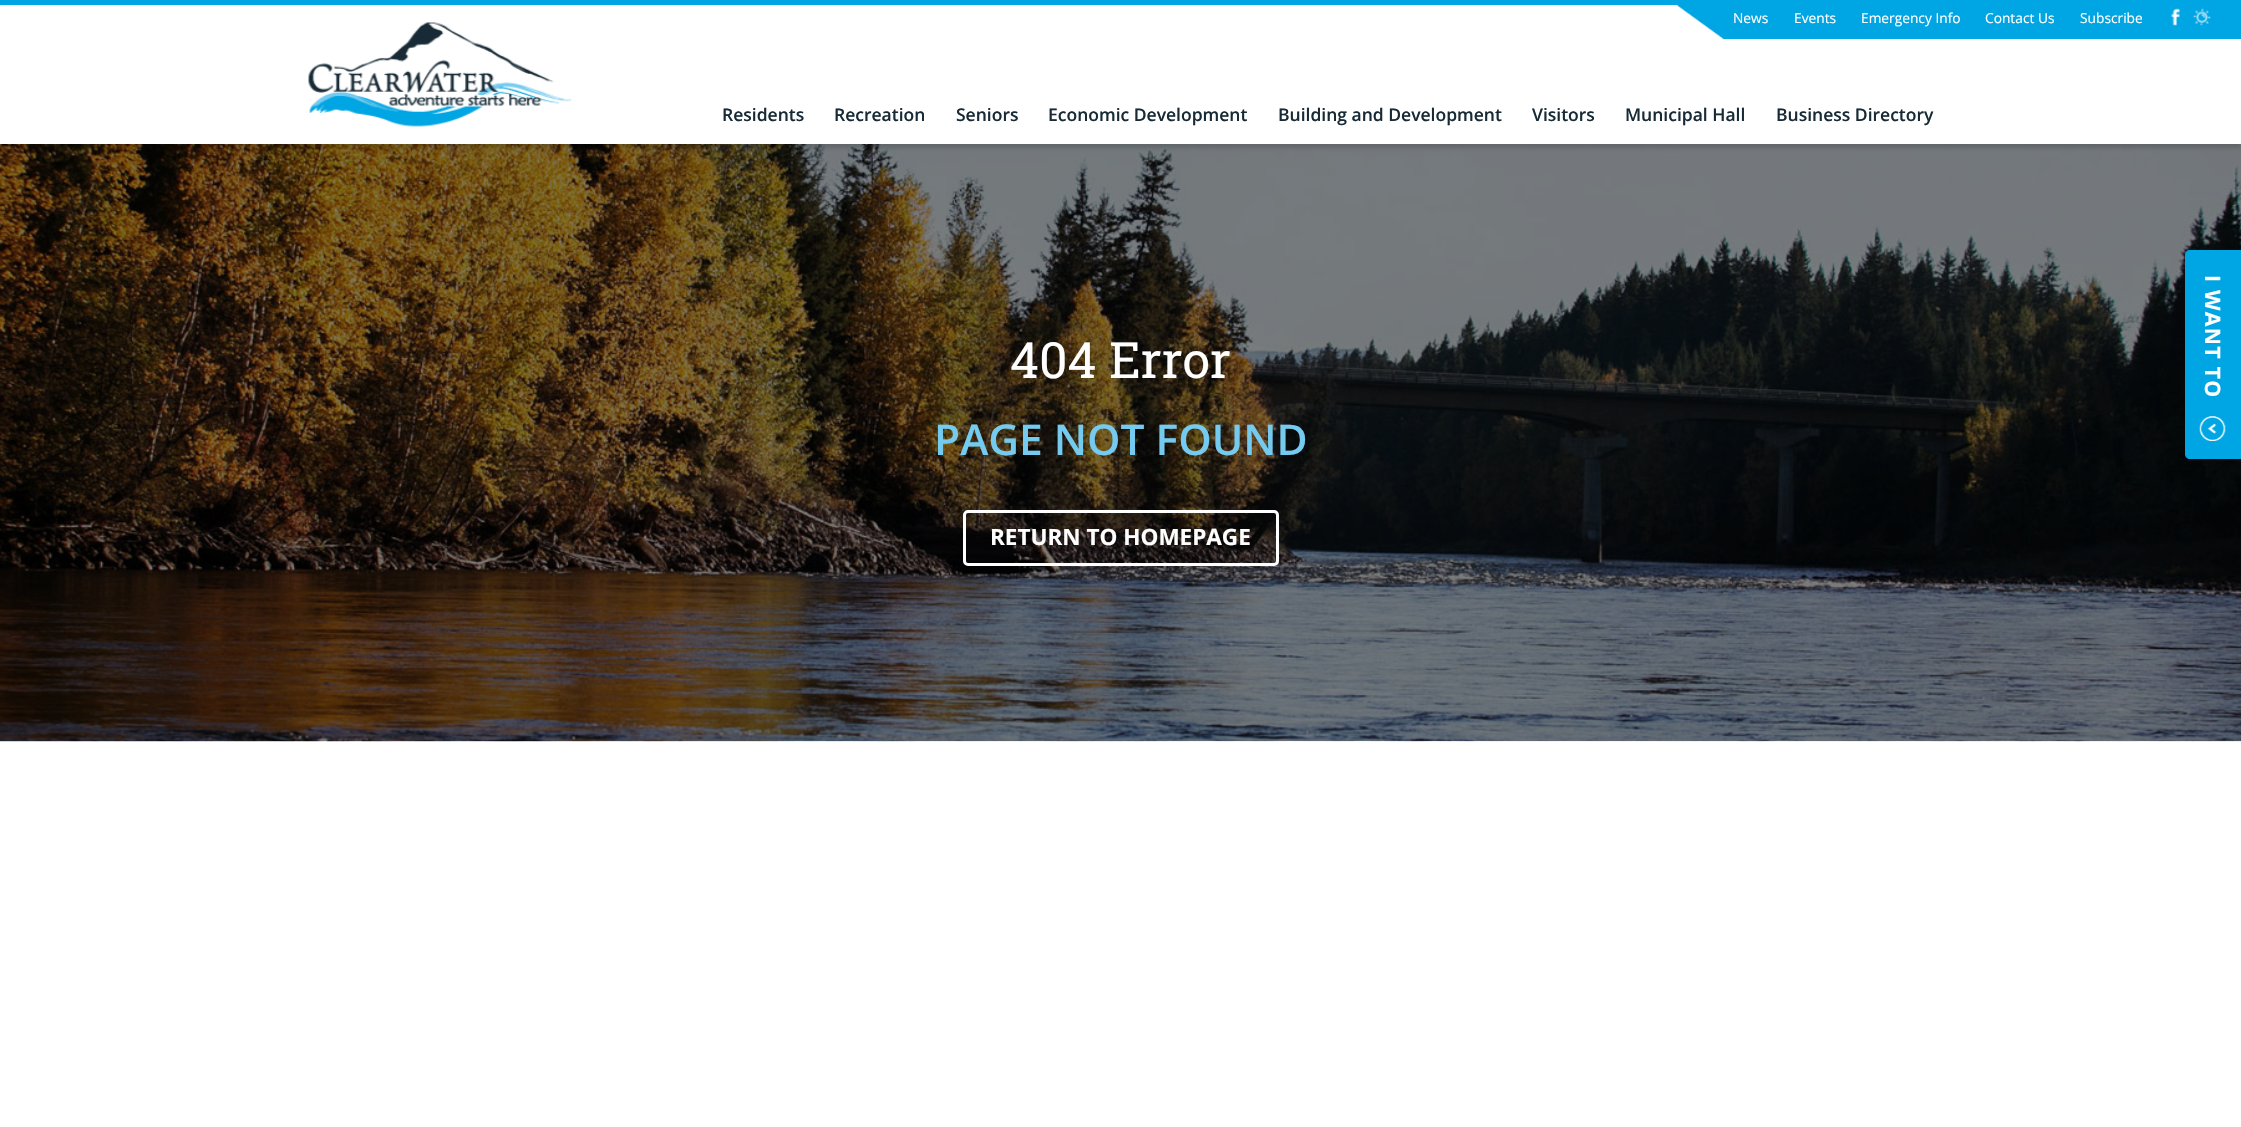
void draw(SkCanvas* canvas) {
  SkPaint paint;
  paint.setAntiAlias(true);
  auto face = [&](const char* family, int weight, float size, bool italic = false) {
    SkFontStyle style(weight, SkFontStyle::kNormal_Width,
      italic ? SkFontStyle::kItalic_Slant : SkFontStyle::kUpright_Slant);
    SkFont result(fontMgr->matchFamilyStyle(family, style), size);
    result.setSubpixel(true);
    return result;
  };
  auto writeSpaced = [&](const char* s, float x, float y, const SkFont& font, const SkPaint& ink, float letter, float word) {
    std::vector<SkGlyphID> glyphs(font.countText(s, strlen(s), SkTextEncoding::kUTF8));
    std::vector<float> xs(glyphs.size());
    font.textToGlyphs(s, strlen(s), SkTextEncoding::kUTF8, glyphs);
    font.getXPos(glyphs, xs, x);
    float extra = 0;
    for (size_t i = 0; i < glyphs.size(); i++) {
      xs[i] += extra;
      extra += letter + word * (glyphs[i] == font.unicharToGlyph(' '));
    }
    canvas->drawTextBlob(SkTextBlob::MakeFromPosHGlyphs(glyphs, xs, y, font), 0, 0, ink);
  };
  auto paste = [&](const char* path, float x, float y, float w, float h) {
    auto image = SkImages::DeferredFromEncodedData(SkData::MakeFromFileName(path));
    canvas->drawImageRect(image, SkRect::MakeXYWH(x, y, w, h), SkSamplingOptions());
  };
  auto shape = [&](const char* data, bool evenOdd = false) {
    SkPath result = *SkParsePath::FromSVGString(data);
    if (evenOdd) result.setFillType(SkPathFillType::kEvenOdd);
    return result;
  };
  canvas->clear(0xffffffff);
  paste("img/5.png", 0, 144, 2241, 598);
  paint.setColor(0x26000000);
  paint.setMaskFilter(SkMaskFilter::MakeBlur(kNormal_SkBlurStyle, 2));
  canvas->drawRect(SkRect::MakeXYWH(0, 4, 2241, 144), paint);
  paint.setMaskFilter(nullptr);
  {
    const struct { float x, y, w, h; SkColor color; } items[] = {
      {0, 5, 2241, 139, 0xffffffff},
      {0, 0, 2241, 5, 0xff00a5e3},
      {1723, 5, 518, 34, 0xff00a5e3},
    };
    for (auto [x, y, w, h, color] : items) {
      paint.setColor(color);
      canvas->drawRect(SkRect::MakeXYWH(x, y, w, h), paint);
    }
  }
  paste("img/1.png", 1677, 5, 47, 34);
  paste("img/2.png", 2170, 8, 11, 18);
  paste("img/3.png", 2193, 8, 18, 18);
  paste("img/4.png", 308, 22, 264, 105);
  paint.setStroke(true);
  paint.setStrokeWidth(3);
  paint.setColor(0xffffffff);
  canvas->drawRoundRect(SkRect::MakeXYWH(964.5f, 511.5f, 313, 53), 3.5f, 3.5f, paint);
  paint.setStroke(false);
  paint.setColor(0xff00a5e3);
  canvas->drawPath(shape("M2241 250V459H2190C2187 459 2185 457 2185 454V255C2185 252 2187 250 2190 250Z"), paint);
  paste("img/6.png", 2199, 416, 27, 25);
  auto f0 = face("Open Sans", 400, 13.75f);
  paint.setColor(0xffffffff);
  {
    const struct { const char* s; float x, y; } items[] = {
      {"News", 1733, 23},
      {"Events", 1794, 23},
      {"Emergency Info", 1861, 23},
      {"Contact Us", 1985, 23},
      {"Subscribe", 2080, 23},
    };
    for (auto [s, x, y] : items) {
      canvas->drawString(s, x, y, f0, paint);
    }
  }
  auto f1 = face("Open Sans", 600, 17.5f);
  paint.setColor(0xff172a35);
  {
    const struct { const char* s; float x, y; } items[] = {
      {"Residents", 722, 121},
      {"Recreation", 834, 121},
      {"Seniors", 956, 121},
      {"Economic Development", 1048, 121},
      {"Building and Development", 1278, 121},
      {"Visitors", 1532, 121},
      {"Municipal Hall", 1625, 121},
      {"Business Directory", 1776, 121},
    };
    for (auto [s, x, y] : items) {
      canvas->drawString(s, x, y, f1, paint);
    }
  }
  auto f2 = face("Roboto Slab", 400, 50);
  paint.setColor(0xffffffff);
  canvas->drawString("404 Error", 1010, 378, f2, paint);
  auto f3 = face("Open Sans", 600, 42.5f);
  paint.setColor(0xff74cbef);
  canvas->drawString("PAGE NOT FOUND", 934, 455, f3, paint);
  auto f4 = face("Open Sans", 700, 22.5f);
  paint.setColor(0xffffffff);
  canvas->drawString("RETURN TO HOMEPAGE", 990, 545, f4, paint);
  auto f5 = face("Open Sans", 700, 21.25f);
  canvas->save();
  canvas->rotate(90, 2205, 275);
  writeSpaced("I WANT TO", 2205, 275, f5, paint, 1.25f, 0);
  canvas->restore();
}
